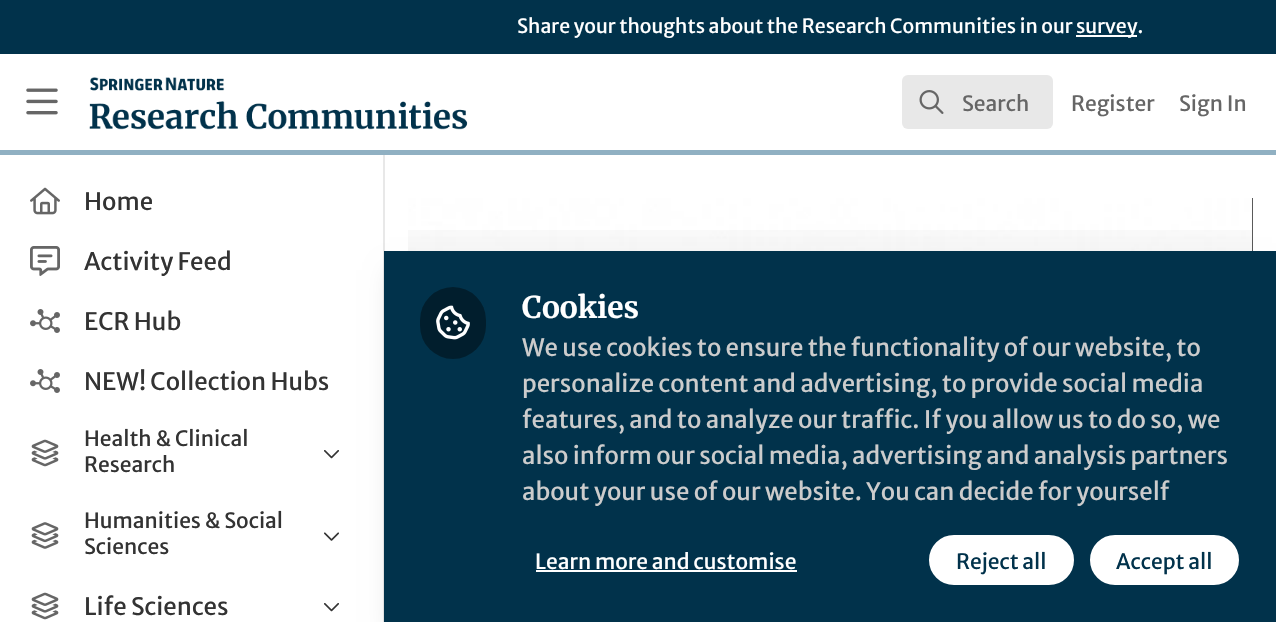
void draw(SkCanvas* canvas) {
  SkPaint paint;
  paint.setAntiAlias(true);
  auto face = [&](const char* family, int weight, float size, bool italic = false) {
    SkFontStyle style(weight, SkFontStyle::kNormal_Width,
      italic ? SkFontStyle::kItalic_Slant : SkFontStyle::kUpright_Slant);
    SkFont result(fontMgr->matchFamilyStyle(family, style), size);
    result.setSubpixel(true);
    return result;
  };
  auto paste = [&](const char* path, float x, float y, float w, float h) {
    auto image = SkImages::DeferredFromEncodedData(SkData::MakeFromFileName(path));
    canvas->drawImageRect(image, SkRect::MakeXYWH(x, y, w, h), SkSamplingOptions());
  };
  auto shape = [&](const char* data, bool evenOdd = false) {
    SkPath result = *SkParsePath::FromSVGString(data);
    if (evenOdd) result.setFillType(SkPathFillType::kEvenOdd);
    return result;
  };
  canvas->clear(0xffffffff);
  {
    const struct { float x, y, w, h; SkColor color; } items[] = {
      {0, 0, 1276, 54, 0xff01324b},
      {1076, 35, 61, 2, 0xffffffff},
      {383, 150, 2, 472, 0xffe8e8e8},
    };
    for (auto [x, y, w, h, color] : items) {
      paint.setColor(color);
      canvas->drawRect(SkRect::MakeXYWH(x, y, w, h), paint);
    }
  }
  paint.setColor(0xff90b0c2);
  canvas->drawPath(shape("M0 150V155H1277V59H1276V150Z"), paint);
  paste("img/1.png", 26, 88, 32, 27);
  paste("img/2.png", 89, 77, 379, 53);
  paint.setColor(0xffe8e8e8);
  canvas->drawRoundRect(SkRect::MakeXYWH(902, 75, 151, 54), 6, 6, paint);
  paste("img/3.png", 919, 90, 25, 24);
  paste("img/4.png", 30, 187, 30, 28);
  paste("img/5.png", 30, 246, 30, 30);
  paste("img/6.png", 30, 309, 30, 24);
  paste("img/6.png", 30, 369, 30, 24);
  paste("img/7.png", 31, 439, 28, 28);
  paste("img/8.png", 324, 450, 15, 9);
  paste("img/9.png", 31, 522, 28, 27);
  paste("img/10.png", 324, 532, 15, 9);
  paste("img/7.png", 31, 592, 28, 28);
  paste("img/8.png", 324, 603, 15, 9);
  paint.setColor(0xff222222);
  canvas->drawRect(SkRect::MakeXYWH(1252, 198, 1, 53), paint);
  paste("img/11.png", 408, 198, 845, 53);
  {
    const SkColor colors[] = {0x00000000, 0xcc000000};
    const float stops[] = {0, 1};
    const SkPoint ends[] = {{830, 198}, {830, 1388}};
    paint.setShader(SkGradientShader::MakeLinear(ends, colors, stops, 2, SkTileMode::kClamp));
    paint.setAlpha(255);
  }
  canvas->drawRect(SkRect::MakeXYWH(408, 230, 845, 21), paint);
  paint.setShader(nullptr);
  paint.setColor(0x1a000000);
  paint.setMaskFilter(SkMaskFilter::MakeBlur(kNormal_SkBlurStyle, 11));
  canvas->drawRect(SkRect::MakeXYWH(389, 270, 883, 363), paint);
  paint.setMaskFilter(nullptr);
  paint.setColor(0xff01324b);
  canvas->drawRect(SkRect::MakeXYWH(384, 251, 892, 371), paint);
  paint.setColor(0xff011e2d);
  canvas->drawRoundRect(SkRect::MakeXYWH(420, 287, 66, 72), 33, 33, paint);
  paste("img/12.png", 436, 305, 34, 35);
  paint.setColor(0xffffffff);
  canvas->drawRect(SkRect::MakeXYWH(536, 570, 261, 2), paint);
  canvas->drawRoundRect(SkRect::MakeXYWH(928, 534, 147, 52), 26, 26, paint);
  paint.setStroke(true);
  paint.setStrokeWidth(2);
  paint.setColor(0xff01324b);
  canvas->drawRoundRect(SkRect::MakeXYWH(928, 534, 147, 52), 26, 26, paint);
  paint.setStroke(false);
  paint.setColor(0xffffffff);
  canvas->drawRoundRect(SkRect::MakeXYWH(1089, 534, 151, 52), 26, 26, paint);
  paint.setStroke(true);
  paint.setColor(0xff01324b);
  canvas->drawRoundRect(SkRect::MakeXYWH(1089, 534, 151, 52), 26, 26, paint);
  auto f0 = face("Merriweather Sans", 400, 19.5f);
  paint.setStroke(false);
  paint.setColor(0xffffffff);
  canvas->drawString("Share your thoughts about the Research Communities in our", 517, 33, f0, paint);
  canvas->drawString("survey.", 1076, 33, f0, paint);
  auto f1 = face("Merriweather Sans", 400, 21);
  paint.setColor(0xff666666);
  {
    const struct { const char* s; float x, y; } items[] = {
      {"Search", 962, 111},
      {"Register", 1071, 111},
      {"Sign In", 1179, 111},
    };
    for (auto [s, x, y] : items) {
      canvas->drawString(s, x, y, f1, paint);
    }
  }
  auto f2 = face("Merriweather Sans", 400, 24);
  paint.setColor(0xff333333);
  {
    const struct { const char* s; float x, y; } items[] = {
      {"Home", 84, 210},
      {"Activity Feed", 84, 270},
      {"ECR Hub", 84, 330},
      {"NEW! Collection Hubs", 84, 390},
    };
    for (auto [s, x, y] : items) {
      canvas->drawString(s, x, y, f2, paint);
    }
  }
  {
    const struct { const char* s; float x, y; } items[] = {
      {"Health & Clinical", 84, 446},
      {"Research", 84, 472},
      {"Humanities & Social", 84, 528},
      {"Sciences", 84, 554},
    };
    for (auto [s, x, y] : items) {
      canvas->drawString(s, x, y, f1, paint);
    }
  }
  canvas->drawString("Life Sciences", 84, 615, f2, paint);
  auto f3 = face("Merriweather", 700, 30);
  paint.setColor(0xffffffff);
  canvas->drawString("Cookies", 522, 318, f3, paint);
  paint.setColor(0xffcccccc);
  {
    const struct { const char* s; float x, y; } items[] = {
      {"We use cookies to ensure the functionality of our website, to", 522, 356},
      {"personalize content and advertising, to provide social media", 522, 392},
      {"features, and to analyze our traffic. If you allow us to do so, we", 522, 428},
      {"also inform our social media, advertising and analysis partners", 522, 464},
      {"about your use of our website. You can decide for yourself", 522, 500},
    };
    for (auto [s, x, y] : items) {
      canvas->drawString(s, x, y, f2, paint);
    }
  }
  paint.setColor(0xffffffff);
  canvas->drawString("Learn more and customise", 535, 569, f1, paint);
  paint.setColor(0xff01324b);
  canvas->drawString("Reject all", 956, 569, f1, paint);
  canvas->drawString("Accept all", 1116, 569, f1, paint);
}
